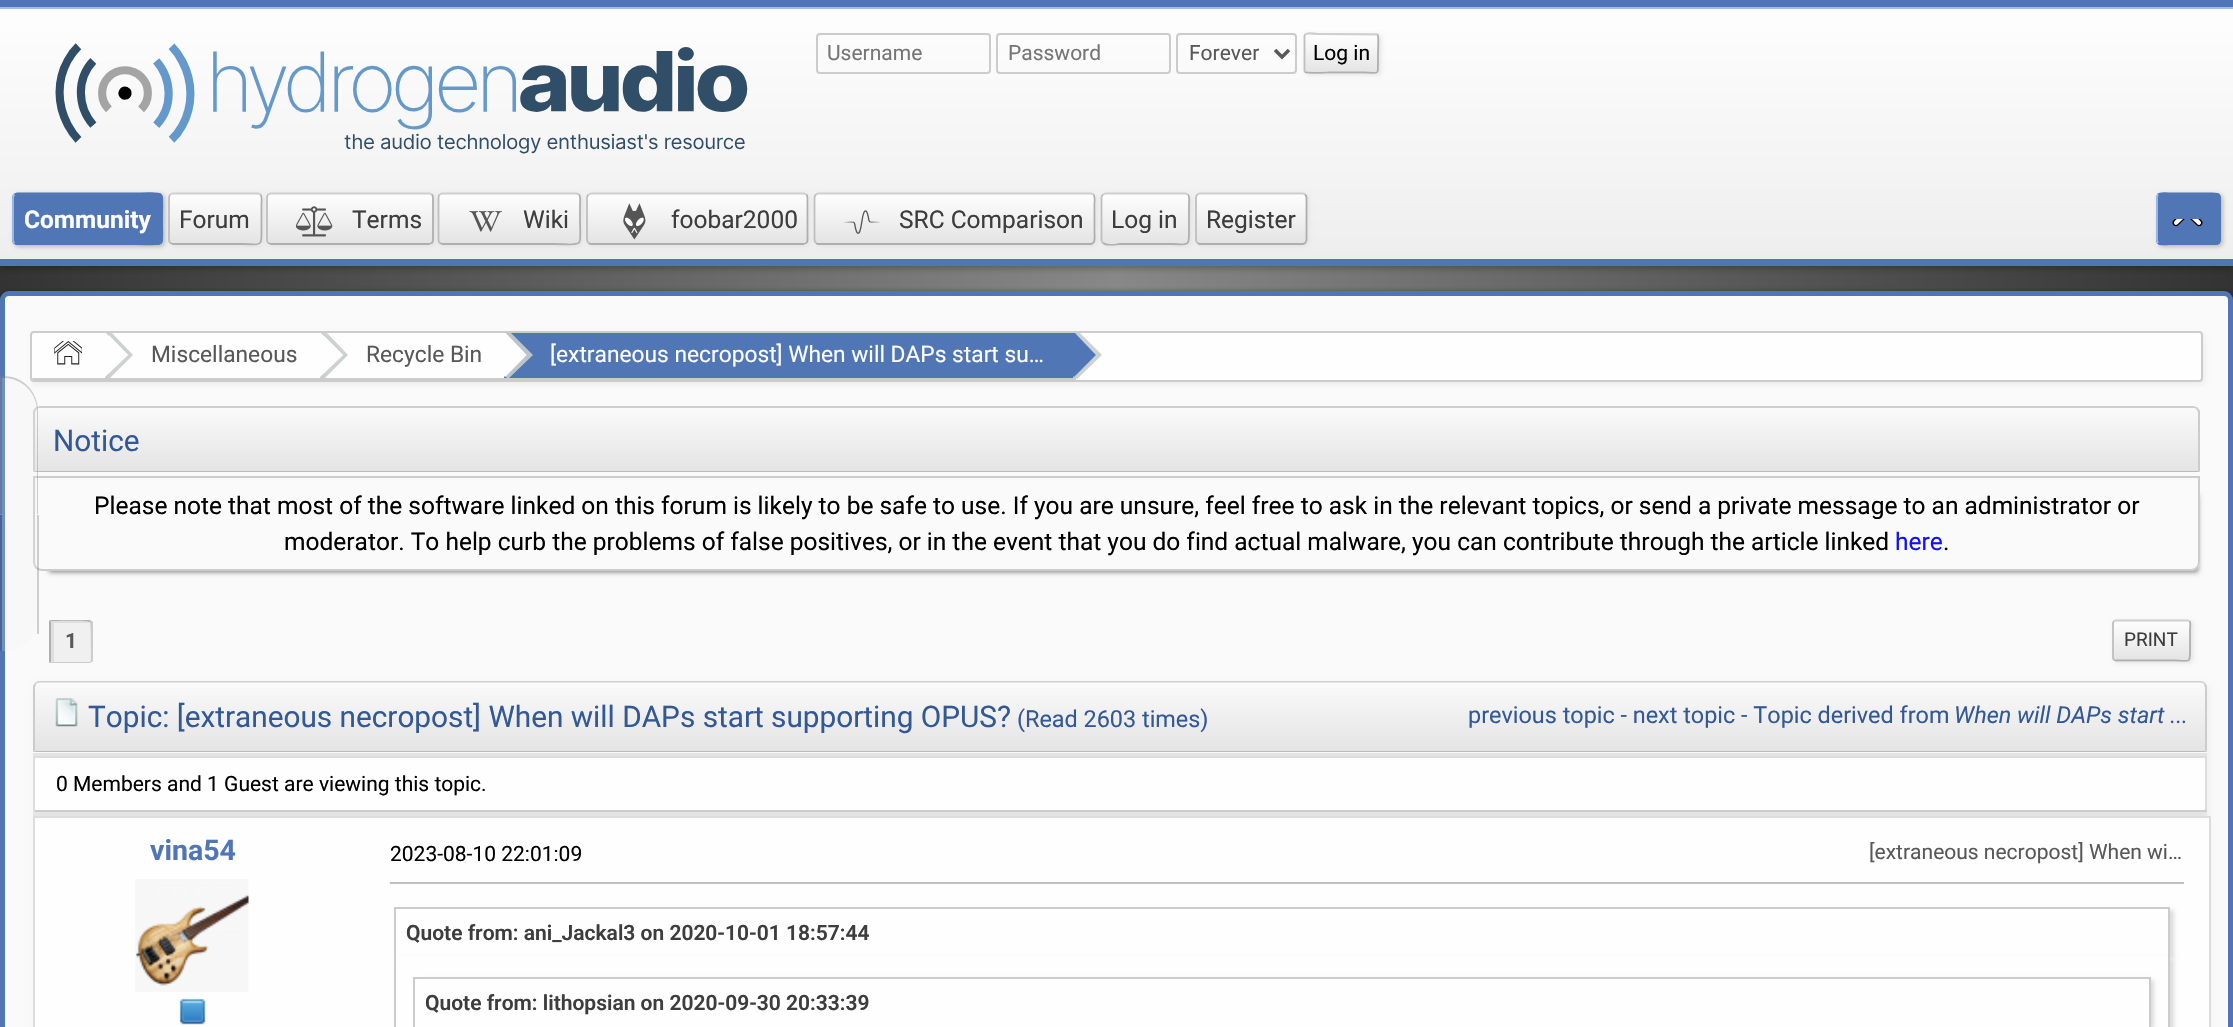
void draw(SkCanvas* canvas) {
  SkPaint paint;
  paint.setAntiAlias(true);
  auto face = [&](const char* family, int weight, float size, bool italic = false) {
    SkFontStyle style(weight, SkFontStyle::kNormal_Width,
      italic ? SkFontStyle::kItalic_Slant : SkFontStyle::kUpright_Slant);
    SkFont result(fontMgr->matchFamilyStyle(family, style), size);
    result.setSubpixel(true);
    return result;
  };
  auto paste = [&](const char* path, float x, float y, float w, float h) {
    auto image = SkImages::DeferredFromEncodedData(SkData::MakeFromFileName(path));
    canvas->drawImageRect(image, SkRect::MakeXYWH(x, y, w, h), SkSamplingOptions());
  };
  auto shape = [&](const char* data, bool evenOdd = false) {
    SkPath result = *SkParsePath::FromSVGString(data);
    if (evenOdd) result.setFillType(SkPathFillType::kEvenOdd);
    return result;
  };
  canvas->clear(0xffffffff);
  {
    const SkColor colors[] = {0xff333333, 0xff888888, 0xff333333};
    const float stops[] = {0, 0.5f, 1};
    const SkPoint ends[] = {{0, 981}, {2233, 981}};
    paint.setShader(SkGradientShader::MakeLinear(ends, colors, stops, 3, SkTileMode::kClamp));
    paint.setAlpha(255);
  }
  canvas->drawRect(SkRect::MakeXYWH(0, 266, 2233, 34), paint);
  paint.setShader(nullptr);
  paint.setColor(0x4d000000);
  paint.setMaskFilter(SkMaskFilter::MakeBlur(kNormal_SkBlurStyle, 3.5f));
  canvas->drawRect(SkRect::MakeXYWH(0, 2, 2233, 266), paint);
  paint.setMaskFilter(nullptr);
  {
    const SkColor colors[] = {0xfffefefe, 0xffeeeeee};
    const float stops[] = {0, 1};
    const SkPoint ends[] = {{1117, 7}, {1117, 259}};
    paint.setShader(SkGradientShader::MakeLinear(ends, colors, stops, 2, SkTileMode::kClamp));
    paint.setAlpha(255);
  }
  canvas->drawRect(SkRect::MakeXYWH(0, 9, 2233, 250), paint);
  paint.setShader(nullptr);
  {
    const struct { float x, y, w, h; SkColor color; } items[] = {
      {0, 7, 2233, 2, 0xffa0bcef},
      {0, 0, 2233, 7, 0xff5176b5},
      {0, 259, 2233, 7, 0xff5176b5},
    };
    for (auto [x, y, w, h, color] : items) {
      paint.setColor(color);
      canvas->drawRect(SkRect::MakeXYWH(x, y, w, h), paint);
    }
  }
  paste("img/1.png", 55, 43, 693, 111);
  paint.setStroke(true);
  paint.setStrokeWidth(2);
  paint.setColor(0xffcccccc);
  canvas->drawRoundRect(SkRect::MakeXYWH(817, 34, 173, 39), 3, 3, paint);
  canvas->drawRoundRect(SkRect::MakeXYWH(997, 34, 173, 39), 3, 3, paint);
  canvas->drawRoundRect(SkRect::MakeXYWH(1177, 34, 119, 39), 3, 3, paint);
  paint.setStrokeWidth(3.5f);
  paint.setColor(0xff585858);
  canvas->drawPath(shape("M1275 50L1282 57L1289 50"), paint);
  paint.setStroke(false);
  paint.setColor(0xffe5e5e5);
  paint.setMaskFilter(SkMaskFilter::MakeBlur(kNormal_SkBlurStyle, 2));
  canvas->drawRoundRect(SkRect::MakeXYWH(1306, 35, 75, 40), 2.5f, 2.5f, paint);
  paint.setMaskFilter(nullptr);
  canvas->save();
  canvas->clipPath(shape("M1306.5 33H1376.5C1378 33 1379 34 1379 35.5V71.5C1379 73 1378 74 1376.5 74H1306.5C1305 74 1304 73 1304 71.5V35.5C1304 34 1305 33 1306.5 33Z"), true);
  {
    const SkColor colors[] = {0xfffefefe, 0xffe4e4e4};
    const float stops[] = {0, 1};
    const SkPoint ends[] = {{1341, -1.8f}, {1341, 35}};
    paint.setShader(SkGradientShader::MakeLinear(ends, colors, stops, 2, SkTileMode::kClamp));
    paint.setAlpha(255);
  }
  canvas->drawRect(SkRect::MakeXYWH(1304, 33, 75, 2), paint);
  canvas->restore();
  {
    const SkColor colors[] = {0xfffefefe, 0xffe4e4e4};
    const float stops[] = {0, 1};
    const SkPoint ends[] = {{1341, 35}, {1341, 72}};
    paint.setShader(SkGradientShader::MakeLinear(ends, colors, stops, 2, SkTileMode::kClamp));
    paint.setAlpha(255);
  }
  canvas->drawRect(SkRect::MakeXYWH(1305, 35, 74, 37), paint);
  canvas->save();
  canvas->clipPath(shape("M1306.5 33H1376.5C1378 33 1379 34 1379 35.5V71.5C1379 73 1378 74 1376.5 74H1306.5C1305 74 1304 73 1304 71.5V35.5C1304 34 1305 33 1306.5 33Z"), true);
  {
    const SkColor colors[] = {0xfffefefe, 0xffe4e4e4};
    const float stops[] = {0, 1};
    const SkPoint ends[] = {{1341, 72}, {1341, 109}};
    paint.setShader(SkGradientShader::MakeLinear(ends, colors, stops, 2, SkTileMode::kClamp));
    paint.setAlpha(255);
  }
  canvas->drawRect(SkRect::MakeXYWH(1304, 72, 75, 2), paint);
  canvas->restore();
  paint.setShader(nullptr);
  paint.setColor(0xffe5e5e5);
  canvas->drawPath(shape("M1306 70C1306 71 1306 72 1307 72H1364C1373 72 1377 75 1377 69L1376 70Z"), paint);
  paint.setStroke(true);
  paint.setStrokeWidth(1.8f);
  paint.setColor(0xffcfcfcf);
  canvas->drawPath(shape("M1305 34.5C1308 31.5 1313.5 34 1318 34L1377.5 34.5"), paint);
  paint.setColor(0xffafafaf);
  canvas->drawPath(shape("M1377.5 34.5C1379 36 1378 50.5 1378 53.5V65C1378 76 1378 72.5 1364.5 72.5H1329.5C1327.5 72.5 1306.5 73.5 1305 72"), paint);
  paint.setColor(0xffbfbfbf);
  canvas->drawPath(shape("M1305 72L1304.5 71V36L1305 34.5"), paint);
  paint.setStroke(false);
  paint.setColor(0xffbbbbbb);
  paint.setMaskFilter(SkMaskFilter::MakeBlur(kNormal_SkBlurStyle, 2));
  canvas->drawRoundRect(SkRect::MakeXYWH(14, 194, 151, 53), 5, 5, paint);
  paint.setMaskFilter(nullptr);
  paint.setColor(0xff5176b5);
  canvas->drawRoundRect(SkRect::MakeXYWH(12, 193, 151, 52), 5, 5, paint);
  paint.setStroke(true);
  canvas->drawPath(shape("M14.5 194.5L17 193.5H134.5C167.5 193.5 162 187.5 162 219C162 250 167.5 244 134.5 244H17L14.5 243"), paint);
  paint.setColor(0xffa0bcef);
  canvas->drawPath(shape("M14.5 243C13.5 242 13 241 13 240V197.5C13 196.5 13.5 195.5 14.5 194.5"), paint);
  paint.setStroke(false);
  paint.setColor(0xffe4e4e4);
  paint.setMaskFilter(SkMaskFilter::MakeBlur(kNormal_SkBlurStyle, 2));
  canvas->drawRoundRect(SkRect::MakeXYWH(170, 194, 94, 53), 5, 5, paint);
  paint.setMaskFilter(nullptr);
  canvas->save();
  canvas->clipPath(shape("M173 193H258C261 193 263 195 263 198V240C263 243 261 245 258 245H173C170 245 168 243 168 240V198C168 195 170 193 173 193Z"), true);
  {
    const SkColor colors[] = {0xfffefefe, 0xffe4e4e4};
    const float stops[] = {0, 1};
    const SkPoint ends[] = {{215, 194}, {215, 243}};
    paint.setShader(SkGradientShader::MakeLinear(ends, colors, stops, 2, SkTileMode::kClamp));
    paint.setAlpha(255);
  }
  canvas->drawRect(SkRect::MakeXYWH(168, 194, 95, 49), paint);
  {
    const SkColor colors[] = {0xfffefefe, 0xffe4e4e4};
    const float stops[] = {0, 1};
    const SkPoint ends[] = {{215, 243}, {215, 292}};
    paint.setShader(SkGradientShader::MakeLinear(ends, colors, stops, 2, SkTileMode::kClamp));
    paint.setAlpha(255);
  }
  canvas->drawRect(SkRect::MakeXYWH(168, 243, 95, 2), paint);
  canvas->restore();
  paint.setStroke(true);
  paint.setShader(nullptr);
  paint.setColor(0xffcfcfcf);
  canvas->drawPath(shape("M170 194.5L172.5 193.5H258L260.5 194.5"), paint);
  paint.setColor(0xffafafaf);
  canvas->drawPath(shape("M260.5 194.5C262.5 197 261.5 202.5 261.5 204.5V233C261.5 247.5 260.5 244 243.5 244H173L170 243"), paint);
  paint.setColor(0xffbfbfbf);
  canvas->drawPath(shape("M170 243C169.5 242 169 241 169 240V197.5C169 196.5 169.5 195.5 170 194.5"), paint);
  paint.setStroke(false);
  paint.setColor(0xffe4e4e4);
  paint.setMaskFilter(SkMaskFilter::MakeBlur(kNormal_SkBlurStyle, 2));
  canvas->drawRoundRect(SkRect::MakeXYWH(268, 194, 168, 53), 5, 5, paint);
  paint.setMaskFilter(nullptr);
  canvas->save();
  canvas->clipPath(shape("M271 193H429C432 193 434 195 434 198V240C434 243 432 245 429 245H271C268 245 266 243 266 240V198C266 195 268 193 271 193Z"), true);
  {
    const SkColor colors[] = {0xfffefefe, 0xffe4e4e4};
    const float stops[] = {0, 1};
    const SkPoint ends[] = {{350, 194}, {350, 243}};
    paint.setShader(SkGradientShader::MakeLinear(ends, colors, stops, 2, SkTileMode::kClamp));
    paint.setAlpha(255);
  }
  canvas->drawRect(SkRect::MakeXYWH(266, 194, 168, 49), paint);
  {
    const SkColor colors[] = {0xfffefefe, 0xffe4e4e4};
    const float stops[] = {0, 1};
    const SkPoint ends[] = {{350, 243}, {350, 292}};
    paint.setShader(SkGradientShader::MakeLinear(ends, colors, stops, 2, SkTileMode::kClamp));
    paint.setAlpha(255);
  }
  canvas->drawRect(SkRect::MakeXYWH(266, 243, 168, 2), paint);
  canvas->restore();
  paint.setStroke(true);
  paint.setShader(nullptr);
  paint.setColor(0xffcfcfcf);
  canvas->drawPath(shape("M268 194.5C269 194 270 193.5 271 193.5H429C430 193.5 431 194 432 194.5"), paint);
  paint.setColor(0xffafafaf);
  canvas->drawPath(shape("M432 194.5C432.5 195.5 433 196.5 433 197.5V240C433 241 432.5 242 432 243C431 243.5 430 244 429 244H271C270 244 269 243.5 268 243"), paint);
  paint.setColor(0xffbfbfbf);
  canvas->drawPath(shape("M268 243C267.5 242 267 241 267 240V197.5C267 196.5 267.5 195.5 268 194.5"), paint);
  paste("img/2.png", 296, 206, 37, 31);
  paint.setStroke(false);
  paint.setColor(0xffe4e4e4);
  paint.setMaskFilter(SkMaskFilter::MakeBlur(kNormal_SkBlurStyle, 2));
  canvas->drawRoundRect(SkRect::MakeXYWH(439, 194, 144, 53), 5, 5, paint);
  paint.setMaskFilter(nullptr);
  canvas->save();
  canvas->clipPath(shape("M443 193H576C579 193 581 195 581 198V240C581 243 579 245 576 245H443C440 245 438 243 438 240V198C438 195 440 193 443 193Z"), true);
  {
    const SkColor colors[] = {0xfffefefe, 0xffe4e4e4};
    const float stops[] = {0, 1};
    const SkPoint ends[] = {{509, 194}, {509, 243}};
    paint.setShader(SkGradientShader::MakeLinear(ends, colors, stops, 2, SkTileMode::kClamp));
    paint.setAlpha(255);
  }
  canvas->drawRect(SkRect::MakeXYWH(438, 194, 143, 49), paint);
  {
    const SkColor colors[] = {0xfffefefe, 0xffe4e4e4};
    const float stops[] = {0, 1};
    const SkPoint ends[] = {{509, 243}, {509, 292}};
    paint.setShader(SkGradientShader::MakeLinear(ends, colors, stops, 2, SkTileMode::kClamp));
    paint.setAlpha(255);
  }
  canvas->drawRect(SkRect::MakeXYWH(438, 243, 143, 2), paint);
  canvas->restore();
  paint.setStroke(true);
  paint.setShader(nullptr);
  paint.setColor(0xffcfcfcf);
  canvas->drawPath(shape("M439.5 194.5C440.5 194 441.5 193.5 442.5 193.5H576C577 193.5 578 194 579 194.5"), paint);
  paint.setColor(0xffafafaf);
  canvas->drawPath(shape("M579 194.5C581 197 580 202.5 580 204.5V219C580 249.5 585.5 244 554 244H442.5L439.5 243"), paint);
  paint.setColor(0xffbfbfbf);
  canvas->drawPath(shape("M439.5 243C439 242 438.5 241 438.5 240V197.5C438.5 196.5 439 195.5 439.5 194.5"), paint);
  paste("img/3.png", 469, 211, 33, 21);
  paint.setStroke(false);
  paint.setColor(0xffe4e4e4);
  paint.setMaskFilter(SkMaskFilter::MakeBlur(kNormal_SkBlurStyle, 2));
  canvas->drawRoundRect(SkRect::MakeXYWH(588, 194, 222, 53), 5, 5, paint);
  paint.setMaskFilter(nullptr);
  canvas->save();
  canvas->clipPath(shape("M591 193H804C807 193 809 195 809 198V240C809 243 807 245 804 245H591C588 245 586 243 586 240V198C586 195 588 193 591 193Z"), true);
  {
    const SkColor colors[] = {0xfffefefe, 0xffe4e4e4};
    const float stops[] = {0, 1};
    const SkPoint ends[] = {{697, 194}, {697, 243}};
    paint.setShader(SkGradientShader::MakeLinear(ends, colors, stops, 2, SkTileMode::kClamp));
    paint.setAlpha(255);
  }
  canvas->drawRect(SkRect::MakeXYWH(586, 194, 223, 49), paint);
  {
    const SkColor colors[] = {0xfffefefe, 0xffe4e4e4};
    const float stops[] = {0, 1};
    const SkPoint ends[] = {{697, 243}, {697, 292}};
    paint.setShader(SkGradientShader::MakeLinear(ends, colors, stops, 2, SkTileMode::kClamp));
    paint.setAlpha(255);
  }
  canvas->drawRect(SkRect::MakeXYWH(586, 243, 223, 2), paint);
  canvas->restore();
  paint.setStroke(true);
  paint.setShader(nullptr);
  paint.setColor(0xffcfcfcf);
  canvas->drawPath(shape("M588.5 194.5L591 193.5H768H803.5L806.5 194.5"), paint);
  paint.setColor(0xffafafaf);
  canvas->drawPath(shape("M806.5 194.5C807 195.5 807.5 196.5 807.5 197.5V240C807.5 241 807 242 806.5 243C805.5 243.5 804.5 244 803.5 244H591C590 244 589 243.5 588.5 243"), paint);
  paint.setColor(0xffbfbfbf);
  canvas->drawPath(shape("M588.5 243C587.5 242 587 241 587 240V197.5C587 196.5 587.5 195.5 588.5 194.5"), paint);
  paste("img/4.png", 623, 203, 23, 37);
  paint.setStroke(false);
  paint.setColor(0xffe4e4e4);
  paint.setMaskFilter(SkMaskFilter::MakeBlur(kNormal_SkBlurStyle, 2));
  canvas->drawRoundRect(SkRect::MakeXYWH(816, 194, 281, 53), 5, 5, paint);
  paint.setMaskFilter(nullptr);
  canvas->save();
  canvas->clipPath(shape("M819 193H1091C1094 193 1096 195 1096 198V240C1096 243 1094 245 1091 245H819C816 245 814 243 814 240V198C814 195 816 193 819 193Z"), true);
  {
    const SkColor colors[] = {0xfffefefe, 0xffe4e4e4};
    const float stops[] = {0, 1};
    const SkPoint ends[] = {{955, 194}, {955, 243}};
    paint.setShader(SkGradientShader::MakeLinear(ends, colors, stops, 2, SkTileMode::kClamp));
    paint.setAlpha(255);
  }
  canvas->drawRect(SkRect::MakeXYWH(814, 194, 282, 49), paint);
  {
    const SkColor colors[] = {0xfffefefe, 0xffe4e4e4};
    const float stops[] = {0, 1};
    const SkPoint ends[] = {{955, 243}, {955, 292}};
    paint.setShader(SkGradientShader::MakeLinear(ends, colors, stops, 2, SkTileMode::kClamp));
    paint.setAlpha(255);
  }
  canvas->drawRect(SkRect::MakeXYWH(814, 243, 282, 2), paint);
  canvas->restore();
  paint.setStroke(true);
  paint.setShader(nullptr);
  paint.setColor(0xffcfcfcf);
  canvas->drawPath(shape("M816 194.5C816.5 194 817.5 193.5 818.5 193.5H1090.5C1091.5 193.5 1092.5 194 1093.5 194.5"), paint);
  paint.setColor(0xffafafaf);
  canvas->drawPath(shape("M1093.5 194.5C1095.5 197 1094.5 202.5 1094.5 204.5V233C1094.5 236 1096 244 1090.5 244H817.5L816 243"), paint);
  paint.setColor(0xffbfbfbf);
  canvas->drawPath(shape("M816 243C815 242 814.5 241 814.5 240V197.5C814.5 196.5 815 195.5 816 194.5"), paint);
  paste("img/5.png", 844, 210, 36, 24);
  paint.setStroke(false);
  paint.setColor(0xffe4e4e4);
  paint.setMaskFilter(SkMaskFilter::MakeBlur(kNormal_SkBlurStyle, 2));
  canvas->drawRoundRect(SkRect::MakeXYWH(1103, 194, 89, 53), 5, 5, paint);
  paint.setMaskFilter(nullptr);
  canvas->save();
  canvas->clipPath(shape("M1106 193H1185C1188 193 1190 195 1190 198V240C1190 243 1188 245 1185 245H1106C1103 245 1101 243 1101 240V198C1101 195 1103 193 1106 193Z"), true);
  {
    const SkColor colors[] = {0xfffefefe, 0xffe4e4e4};
    const float stops[] = {0, 1};
    const SkPoint ends[] = {{1145, 194}, {1145, 243}};
    paint.setShader(SkGradientShader::MakeLinear(ends, colors, stops, 2, SkTileMode::kClamp));
    paint.setAlpha(255);
  }
  canvas->drawRect(SkRect::MakeXYWH(1101, 194, 89, 49), paint);
  {
    const SkColor colors[] = {0xfffefefe, 0xffe4e4e4};
    const float stops[] = {0, 1};
    const SkPoint ends[] = {{1145, 243}, {1145, 292}};
    paint.setShader(SkGradientShader::MakeLinear(ends, colors, stops, 2, SkTileMode::kClamp));
    paint.setAlpha(255);
  }
  canvas->drawRect(SkRect::MakeXYWH(1101, 243, 89, 2), paint);
  canvas->restore();
  paint.setStroke(true);
  paint.setShader(nullptr);
  paint.setColor(0xffcfcfcf);
  canvas->drawPath(shape("M1103 194.5L1105.5 193.5H1185.5L1188 194.5"), paint);
  paint.setColor(0xffafafaf);
  canvas->drawPath(shape("M1188 194.5C1190 197 1189 202.5 1189 204.5V233C1189 247.5 1188 244 1172 244H1119C1118.5 244 1106 246 1103 243"), paint);
  paint.setColor(0xffbfbfbf);
  canvas->drawPath(shape("M1103 243C1102 242 1101.5 241 1101.5 240V197.5C1101.5 196.5 1102 195.5 1103 194.5"), paint);
  paint.setStroke(false);
  paint.setColor(0xffe4e4e4);
  paint.setMaskFilter(SkMaskFilter::MakeBlur(kNormal_SkBlurStyle, 2));
  canvas->drawRoundRect(SkRect::MakeXYWH(1197, 194, 112, 53), 5, 5, paint);
  paint.setMaskFilter(nullptr);
  canvas->save();
  canvas->clipPath(shape("M1200 193H1302C1305 193 1307 195 1307 198V240C1307 243 1305 245 1302 245H1200C1197 245 1195 243 1195 240V198C1195 195 1197 193 1200 193Z"), true);
  {
    const SkColor colors[] = {0xfffefefe, 0xffe4e4e4};
    const float stops[] = {0, 1};
    const SkPoint ends[] = {{1251, 194}, {1251, 243}};
    paint.setShader(SkGradientShader::MakeLinear(ends, colors, stops, 2, SkTileMode::kClamp));
    paint.setAlpha(255);
  }
  canvas->drawRect(SkRect::MakeXYWH(1195, 194, 112, 49), paint);
  {
    const SkColor colors[] = {0xfffefefe, 0xffe4e4e4};
    const float stops[] = {0, 1};
    const SkPoint ends[] = {{1251, 243}, {1251, 292}};
    paint.setShader(SkGradientShader::MakeLinear(ends, colors, stops, 2, SkTileMode::kClamp));
    paint.setAlpha(255);
  }
  canvas->drawRect(SkRect::MakeXYWH(1195, 243, 112, 2), paint);
  canvas->restore();
  paint.setStroke(true);
  paint.setShader(nullptr);
  paint.setColor(0xffcfcfcf);
  canvas->drawPath(shape("M1197.5 194.5C1198 194 1199 193.5 1200 193.5H1302.5C1303.5 193.5 1304.5 194 1305 194.5"), paint);
  paint.setColor(0xffafafaf);
  canvas->drawPath(shape("M1305 194.5C1306 195.5 1306.5 196.5 1306.5 197.5V240C1306.5 241 1306 242 1305 243C1304.5 243.5 1303.5 244 1302.5 244H1200C1199 244 1198 243.5 1197.5 243"), paint);
  paint.setColor(0xffbfbfbf);
  canvas->drawPath(shape("M1197.5 243C1196.5 242 1196 241 1196 240V197.5C1196 196.5 1196.5 195.5 1197.5 194.5"), paint);
  paint.setStroke(false);
  paint.setColor(0xffbbbbbb);
  paint.setMaskFilter(SkMaskFilter::MakeBlur(kNormal_SkBlurStyle, 2));
  canvas->drawRoundRect(SkRect::MakeXYWH(2158, 194, 65, 53), 5, 5, paint);
  paint.setMaskFilter(nullptr);
  paint.setColor(0xff5176b5);
  canvas->drawRoundRect(SkRect::MakeXYWH(2156, 193, 65, 52), 5, 5, paint);
  paint.setStroke(true);
  canvas->drawPath(shape("M2158 194.5C2160.5 192 2169 193.5 2170 193.5H2206.5C2220 193.5 2220 191.5 2220 204.5V233C2220 246 2220 244 2206.5 244H2170C2169 244 2160.5 245.5 2158 243"), paint);
  paint.setColor(0xffa0bcef);
  canvas->drawPath(shape("M2158 243C2157.5 242 2157 241 2157 240V197.5C2157 196.5 2157.5 195.5 2158 194.5"), paint);
  paste("img/6.png", 2172, 219, 31, 8);
  paint.setStroke(false);
  paint.setColor(0xff111111);
  paint.setMaskFilter(SkMaskFilter::MakeBlur(kNormal_SkBlurStyle, 3.5f));
  canvas->drawRoundRect(SkRect::MakeXYWH(0, 294, 2233, 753), 9, 9, paint);
  paint.setMaskFilter(nullptr);
  paint.setColor(0xfffafafa);
  canvas->drawRoundRect(SkRect::MakeXYWH(2.5f, 293.5f, 2228, 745), 6.5f, 6.5f, paint);
  paint.setStroke(true);
  paint.setStrokeWidth(5);
  paint.setColor(0xff5176b5);
  canvas->drawRoundRect(SkRect::MakeXYWH(2.5f, 293.5f, 2228, 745), 6.5f, 6.5f, paint);
  paint.setStroke(false);
  paint.setColor(0xffeeeeee);
  paint.setMaskFilter(SkMaskFilter::MakeBlur(kNormal_SkBlurStyle, 2.5f));
  canvas->drawRoundRect(SkRect::MakeXYWH(32, 334, 2173, 51), 4, 4, paint);
  paint.setMaskFilter(nullptr);
  paint.setColor(0xfffefefe);
  canvas->drawRoundRect(SkRect::MakeXYWH(31, 332, 2171, 49), 3, 3, paint);
  paint.setStroke(true);
  paint.setStrokeWidth(2);
  paint.setColor(0xffcccccc);
  canvas->drawRoundRect(SkRect::MakeXYWH(31, 332, 2171, 49), 3, 3, paint);
  paint.setStroke(false);
  canvas->drawPath(shape("M32 378H105V380H34C33 380 32 379 32 378Z"), paint);
  canvas->save();
  canvas->clipPath(shape("M40 406H2193C2197 406 2200 409 2200 413V473H33V413C33 409 36 406 40 406Z"), true);
  {
    const SkColor colors[] = {0xfffafafa, 0xffe4e4e4};
    const float stops[] = {0, 1};
    const SkPoint ends[] = {{1117, 408}, {1117, 471}};
    paint.setShader(SkGradientShader::MakeLinear(ends, colors, stops, 2, SkTileMode::kClamp));
    paint.setAlpha(255);
  }
  canvas->drawRect(SkRect::MakeXYWH(33, 408, 2167, 63), paint);
  canvas->restore();
  paint.setShader(nullptr);
  paint.setColor(0xffcfcfcf);
  canvas->drawPath(shape("M40 406C38 406 36 407 35 408L37 409C37 408 39 408 40 408H2193C2194 408 2196 408 2196 409L2198 408C2197 407 2195 406 2193 406Z"), paint);
  paint.setColor(0xffcccccc);
  canvas->drawPath(shape("M2200 472L2198 471V413C2198 411 2197 410 2196 409L2198 408L2200 411Z"), paint);
  paint.setColor(0xffbbbbbb);
  canvas->drawPath(shape("M2199 472H34L35 471H2198Z"), paint);
  paint.setColor(0xffcccccc);
  canvas->drawPath(shape("M33 411L35 408L37 409C36 410 35 411 35 413V471L33 472Z"), paint);
  canvas->save();
  canvas->clipPath(shape("M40 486H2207V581H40ZM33 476H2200V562C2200 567 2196 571 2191 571H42C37 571 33 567 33 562Z", true), true);
  paint.setColor(0x80000000);
  paint.setMaskFilter(SkMaskFilter::MakeBlur(kNormal_SkBlurStyle, 2.5f));
  canvas->drawRect(SkRect::MakeXYWH(49, 495, 2149, 77), paint);
  paint.setMaskFilter(nullptr);
  canvas->restore();
  paint.setStroke(true);
  paint.setColor(0xffcccccc);
  canvas->drawPath(shape("M34 477H2199V562C2199 566.5 2195.5 570 2191 570H42C37.5 570 34 566.5 34 562Z"), paint);
  paint.setStroke(false);
  paint.setColor(0x33eeeeee);
  canvas->drawPath(shape("M0 376H4C23.5 376 39 391.5 39 411V515H0Z"), paint);
  paint.setColor(0x33222222);
  canvas->drawPath(shape("M0 376H4C23 376 38 392 38 411V514H0ZM2 378H4C22 378 37 393 37 411V514H2Z", true), paint);
  paint.setColor(0xffcccccc);
  canvas->drawPath(shape("M39 380H109V336H105V380Z"), paint);
  canvas->drawRect(SkRect::MakeXYWH(106, 333, 3, 3), paint);
  paste("img/7.png", 54, 341, 28, 24);
  canvas->drawPath(shape("M112 380H324V336H320V380Z"), paint);
  canvas->drawRect(SkRect::MakeXYWH(105, 378, 968, 2), paint);
  paint.setColor(0xe6c8cccc);
  canvas->drawPath(shape("M112 333H107L128 355L106 376L109 379L133 355Z"), paint);
  paint.setColor(0xfffefefe);
  canvas->drawPath(shape("M106 333L128 355L105 377L83 355L104 333Z"), paint);
  paint.setColor(0xffcccccc);
  canvas->drawRect(SkRect::MakeXYWH(321, 333, 3, 3), paint);
  paint.setColor(0xe6c8cccc);
  canvas->drawPath(shape("M327 333H321L343 355L321 376L324 379L348 355Z"), paint);
  paint.setColor(0xfffefefe);
  canvas->drawPath(shape("M321 333L343 355L320 377L297 355L319 333Z"), paint);
  paint.setColor(0xff5176b5);
  canvas->drawRect(SkRect::MakeXYWH(504, 333, 569, 45), paint);
  paint.setColor(0xe6c8cccc);
  canvas->drawPath(shape("M511 333H506L527 355L505 376L508 379L533 355Z"), paint);
  paint.setColor(0xfffefefe);
  canvas->drawPath(shape("M506 333L527 355L505 377L482 355L504 333Z"), paint);
  paint.setColor(0xffcccccc);
  canvas->drawPath(shape("M511 380H1076V336H1073V380Z"), paint);
  canvas->drawRect(SkRect::MakeXYWH(1075, 333, 1, 1), paint);
  paint.setColor(0xe6c8cccc);
  canvas->drawPath(shape("M1080 333H1075L1096 355L1074 376L1077 379L1102 355Z"), paint);
  paint.setColor(0xff5176b5);
  canvas->drawPath(shape("M1075 333L1096 355L1074 377L1051 355L1073 333Z"), paint);
  paint.setColor(0xfff0f0f0);
  canvas->drawPath(shape("M49 620H89C91 620 93 622 93 624V659C93 661 91 663 89 663H49Z"), paint);
  paint.setColor(0xffdfdfdf);
  canvas->drawPath(shape("M54 623H91C91 622 90 621 89 621H51V662H54Z"), paint);
  paint.setColor(0xffafafaf);
  canvas->drawPath(shape("M51 621C56 621 89 620 90 622L92 621L89 620H50L51 622Z"), paint);
  paint.setColor(0xffcccccc);
  canvas->drawPath(shape("M92 621L93 622V661L92 662L91 661C91 660 91 623 90 622Z"), paint);
  canvas->drawPath(shape("M92 662L89 663H49L51 661V662H89L91 661Z"), paint);
  paint.setColor(0xffafafaf);
  canvas->drawPath(shape("M49 620L51 622V661L49 663Z"), paint);
  paint.setColor(0xffe4e4e4);
  paint.setMaskFilter(SkMaskFilter::MakeBlur(kNormal_SkBlurStyle, 2));
  canvas->drawRoundRect(SkRect::MakeXYWH(2114, 621, 79, 42), 4, 4, paint);
  paint.setMaskFilter(nullptr);
  canvas->save();
  canvas->clipPath(shape("M2116 620H2187C2189 620 2191 622 2191 624V658C2191 660 2189 662 2187 662H2116C2114 662 2112 660 2112 658V624C2112 622 2114 620 2116 620Z"), true);
  {
    const SkColor colors[] = {0xfffefefe, 0xffe4e4e4};
    const float stops[] = {0, 1};
    const SkPoint ends[] = {{2152, 621}, {2152, 660}};
    paint.setShader(SkGradientShader::MakeLinear(ends, colors, stops, 2, SkTileMode::kClamp));
    paint.setAlpha(255);
  }
  canvas->drawRect(SkRect::MakeXYWH(2112, 621, 79, 39), paint);
  {
    const SkColor colors[] = {0xfffefefe, 0xffe4e4e4};
    const float stops[] = {0, 1};
    const SkPoint ends[] = {{2152, 660}, {2152, 698}};
    paint.setShader(SkGradientShader::MakeLinear(ends, colors, stops, 2, SkTileMode::kClamp));
    paint.setAlpha(255);
  }
  canvas->drawRect(SkRect::MakeXYWH(2112, 660, 79, 2), paint);
  canvas->restore();
  paint.setShader(nullptr);
  paint.setColor(0xffe4e4e4);
  canvas->drawPath(shape("M2114 656C2114 663 2120 660 2128 660H2175C2183 660 2189 663 2189 656C2189 657 2188 658 2187 658H2116C2115 658 2114 657 2114 656Z"), paint);
  paint.setStroke(true);
  paint.setStrokeWidth(1.8f);
  paint.setColor(0xffcfcfcf);
  canvas->drawPath(shape("M2114 621L2116 620.5H2187.5L2189.5 621"), paint);
  paint.setColor(0xffafafaf);
  canvas->drawPath(shape("M2189.5 621C2191 623 2190 627.5 2190 629V652C2190 664 2189 660.5 2175.5 660.5H2116L2114 660"), paint);
  paint.setColor(0xffbfbfbf);
  canvas->drawPath(shape("M2114 660C2113.5 659 2113 658.5 2113 657.5V623.5C2113 622.5 2113.5 622 2114 621"), paint);
  paint.setStroke(false);
  paint.setColor(0xffeeeeee);
  paint.setMaskFilter(SkMaskFilter::MakeBlur(kNormal_SkBlurStyle, 3.5f));
  canvas->drawRoundRect(SkRect::MakeXYWH(35, 684, 2174, 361), 7, 7, paint);
  paint.setMaskFilter(nullptr);
  paint.setColor(0xffe4e4e4);
  canvas->drawPath(shape("M40 681H2200C2204 681 2207 684 2207 688V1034H33V688C33 684 36 681 40 681Z"), paint);
  canvas->save();
  canvas->clipPath(shape("M40 681H2200C2204 681 2207 684 2207 688V753H33V688C33 684 36 681 40 681Z"), true);
  {
    const SkColor colors[] = {0xfffafafa, 0xffe4e4e4};
    const float stops[] = {0, 1};
    const SkPoint ends[] = {{1120, 614}, {1120, 683}};
    paint.setShader(SkGradientShader::MakeLinear(ends, colors, stops, 2, SkTileMode::kClamp));
    paint.setAlpha(255);
  }
  canvas->drawRect(SkRect::MakeXYWH(33, 681, 2174, 2), paint);
  {
    const SkColor colors[] = {0xfffafafa, 0xffe4e4e4};
    const float stops[] = {0, 1};
    const SkPoint ends[] = {{1120, 682}, {1120, 751}};
    paint.setShader(SkGradientShader::MakeLinear(ends, colors, stops, 2, SkTileMode::kClamp));
    paint.setAlpha(255);
  }
  canvas->drawRect(SkRect::MakeXYWH(33, 683, 2174, 68), paint);
  canvas->restore();
  {
    const SkColor colors[] = {0xfffafafa, 0xffe4e4e4};
    const float stops[] = {0, 1};
    const SkPoint ends[] = {{1120, 751}, {1120, 819}};
    paint.setShader(SkGradientShader::MakeLinear(ends, colors, stops, 2, SkTileMode::kClamp));
    paint.setAlpha(255);
  }
  canvas->drawRect(SkRect::MakeXYWH(33, 751, 2174, 2), paint);
  paint.setShader(nullptr);
  paint.setColor(0xffcfcfcf);
  canvas->drawPath(shape("M40 681C38 681 36 682 35 683L36 684C37 683 38 682 40 682H2200C2202 682 2203 683 2204 684L2205 683C2204 682 2202 681 2200 681Z"), paint);
  paint.setColor(0xffcccccc);
  canvas->drawPath(shape("M2205 683L2207 686V752L2205 751V688C2205 686 2204 685 2204 684Z"), paint);
  paint.setColor(0xffbbbbbb);
  canvas->drawPath(shape("M2206 752H34L35 751H2205Z"), paint);
  paint.setColor(0xffcccccc);
  canvas->drawPath(shape("M33 686L35 683L36 684C36 685 35 686 35 688V751L33 752Z"), paint);
  paste("img/8.png", 55, 698, 23, 29);
  {
    const struct { float x, y, w, h; SkColor color; } items[] = {
      {35, 758, 2170, 52, 0xfffefefe},
      {33, 756, 2174, 2, 0xffdddddd},
      {2205, 756, 2, 56, 0xffdddddd},
      {33, 810, 2174, 2, 0xffcccccc},
      {33, 756, 2, 56, 0xffdddddd},
      {35, 818, 2174, 209, 0xfffefefe},
      {33, 816, 2177, 2, 0xffdddddd},
      {2209, 816, 2, 211, 0xffdddddd},
      {33, 816, 2, 211, 0xffdddddd},
    };
    for (auto [x, y, w, h, color] : items) {
      paint.setColor(color);
      canvas->drawRect(SkRect::MakeXYWH(x, y, w, h), paint);
    }
  }
  paste("img/9.png", 135, 879, 114, 113);
  paste("img/10.png", 179, 998, 27, 27);
  paint.setColor(0xffbfbfbf);
  canvas->drawRect(SkRect::MakeXYWH(390, 882, 1794, 2), paint);
  paint.setColor(0xffdddddd);
  paint.setMaskFilter(SkMaskFilter::MakeBlur(kNormal_SkBlurStyle, 2));
  canvas->drawRect(SkRect::MakeXYWH(397, 910, 1777, 49), paint);
  paint.setMaskFilter(nullptr);
  {
    const struct { float x, y, w, h; SkColor color; } items[] = {
      {396, 909, 1772, 47, 0xfffefefe},
      {394, 907, 1776, 2, 0xffcccccc},
      {2168, 907, 2, 49, 0xffcccccc},
      {394, 907, 2, 49, 0xffcccccc},
    };
    for (auto [x, y, w, h, color] : items) {
      paint.setColor(color);
      canvas->drawRect(SkRect::MakeXYWH(x, y, w, h), paint);
    }
  }
  paint.setColor(0xffdddddd);
  paint.setMaskFilter(SkMaskFilter::MakeBlur(kNormal_SkBlurStyle, 2));
  canvas->drawRect(SkRect::MakeXYWH(397, 959, 1777, 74), paint);
  paint.setMaskFilter(nullptr);
  {
    const struct { float x, y, w, h; SkColor color; } items[] = {
      {396, 956, 1772, 71, 0xfffefefe},
      {2168, 956, 2, 71, 0xffcccccc},
      {394, 956, 2, 71, 0xffcccccc},
    };
    for (auto [x, y, w, h, color] : items) {
      paint.setColor(color);
      canvas->drawRect(SkRect::MakeXYWH(x, y, w, h), paint);
    }
  }
  paint.setColor(0xffdddddd);
  paint.setMaskFilter(SkMaskFilter::MakeBlur(kNormal_SkBlurStyle, 2));
  canvas->drawRect(SkRect::MakeXYWH(417, 980, 1737, 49), paint);
  paint.setMaskFilter(nullptr);
  {
    const struct { float x, y, w, h; SkColor color; } items[] = {
      {415, 979, 1734, 47, 0xfffefefe},
      {413, 977, 1738, 2, 0xffcccccc},
      {2149, 977, 2, 49, 0xffcccccc},
      {413, 977, 2, 49, 0xffcccccc},
      {413, 1026, 1738, 1, 0xfffefefe},
      {2149, 1026, 2, 1, 0xffcccccc},
      {413, 1026, 2, 1, 0xffcccccc},
    };
    for (auto [x, y, w, h, color] : items) {
      paint.setColor(color);
      canvas->drawRect(SkRect::MakeXYWH(x, y, w, h), paint);
    }
  }
  paint.setColor(0x33eeeeee);
  canvas->drawPath(shape("M0 515H39V616C39 635.5 23.5 651 4 651H0Z"), paint);
  paint.setColor(0x33222222);
  canvas->drawRect(SkRect::MakeXYWH(37, 515, 2, 119), paint);
  paint.setColor(0xff486598);
  canvas->drawRect(SkRect::MakeXYWH(0, 515, 2, 136), paint);
  auto f0 = face("Roboto", 400, 21);
  paint.setColor(0xff757575);
  canvas->drawString("Username", 827, 60, f0, paint);
  canvas->drawString("Password", 1008, 60, f0, paint);
  paint.setColor(0xff585858);
  canvas->drawString("Forever", 1189, 60, f0, paint);
  paint.setColor(0xff000000);
  canvas->drawString("Log in", 1313, 60, f0, paint);
  auto f1 = face("Roboto", 700, 24.5f);
  paint.setColor(0xfffefefe);
  canvas->drawString("Community", 24, 228, f1, paint);
  auto f2 = face("Roboto", 400, 24.5f);
  paint.setColor(0xff3d3d3d);
  {
    const struct { const char* s; float x, y; } items[] = {
      {"Forum", 179, 228},
      {"Terms", 352, 228},
      {"Wiki", 523, 228},
      {"foobar2000", 671, 228},
      {"SRC Comparison", 899, 228},
      {"Log in", 1111, 228},
      {"Register", 1206, 228},
    };
    for (auto [s, x, y] : items) {
      canvas->drawString(s, x, y, f2, paint);
    }
  }
  auto f3 = face("Roboto", 400, 22.75f);
  paint.setColor(0xff585858);
  canvas->drawString("Miscellaneous", 151, 362, f3, paint);
  canvas->drawString("Recycle Bin", 366, 362, f3, paint);
  paint.setColor(0xfffefefe);
  canvas->drawString("[extraneous necropost] When will DAPs start su…", 550, 362, f3, paint);
  auto f4 = face("Roboto", 400, 29.75f);
  paint.setColor(0xff335897);
  canvas->drawString("Notice", 53, 451, f4, paint);
  paint.setColor(0xff000000);
  canvas->drawString("Please note that most of the software linked on this forum is likely to be safe to use. If you are unsure, feel free to ask in the relevant topics, or send a private message to an administrator or", 94, 514, f2, paint);
  canvas->drawString("moderator. To help curb the problems of false positives, or in the event that you do find actual malware, you can contribute through the article linked", 284, 550, f2, paint);
  paint.setColor(0xff1111ff);
  canvas->drawString("here", 1895, 550, f2, paint);
  paint.setColor(0xff000000);
  canvas->drawString(".", 1943, 550, f2, paint);
  auto f5 = face("Roboto", 700, 21);
  paint.setColor(0xff585858);
  canvas->drawString("1", 65, 648, f5, paint);
  auto f6 = face("Roboto", 400, 19);
  paint.setColor(0xff3d3d3d);
  canvas->drawString("PRINT", 2124, 646, f6, paint);
  paint.setColor(0xff335897);
  canvas->drawString("Topic: [extraneous necropost] When will DAPs start supporting OPUS?", 88, 727, f4, paint);
  auto f7 = face("Roboto", 400, 23.4f);
  canvas->drawString("(Read 2603 times)", 1017, 727, f7, paint);
  canvas->drawString("previous topic - next topic - Topic derived from", 1468, 723, f7, paint);
  auto f8 = face("Roboto", 400, 23.4f, true);
  canvas->drawString("When will DAPs start ...", 1954, 723, f8, paint);
  paint.setColor(0xff000000);
  canvas->drawString("0 Members and 1 Guest are viewing this topic.", 56, 791, f0, paint);
  auto f9 = face("Roboto", 700, 28.5f);
  paint.setColor(0xff5176b5);
  canvas->drawString("vina54", 150, 860, f9, paint);
  paint.setColor(0xff000000);
  canvas->drawString("2023-08-10 22:01:09", 390, 861, f0, paint);
  paint.setColor(0xff585858);
  canvas->drawString("[extraneous necropost] When wi…", 1869, 859, f0, paint);
  auto f10 = face("Roboto", 600, 21);
  paint.setColor(0xff3d3d3d);
  canvas->drawString("Quote from: ani_Jackal3 on 2020-10-01 18:57:44", 406, 940, f10, paint);
  canvas->drawString("Quote from: lithopsian on 2020-09-30 20:33:39", 425, 1010, f10, paint);
}
